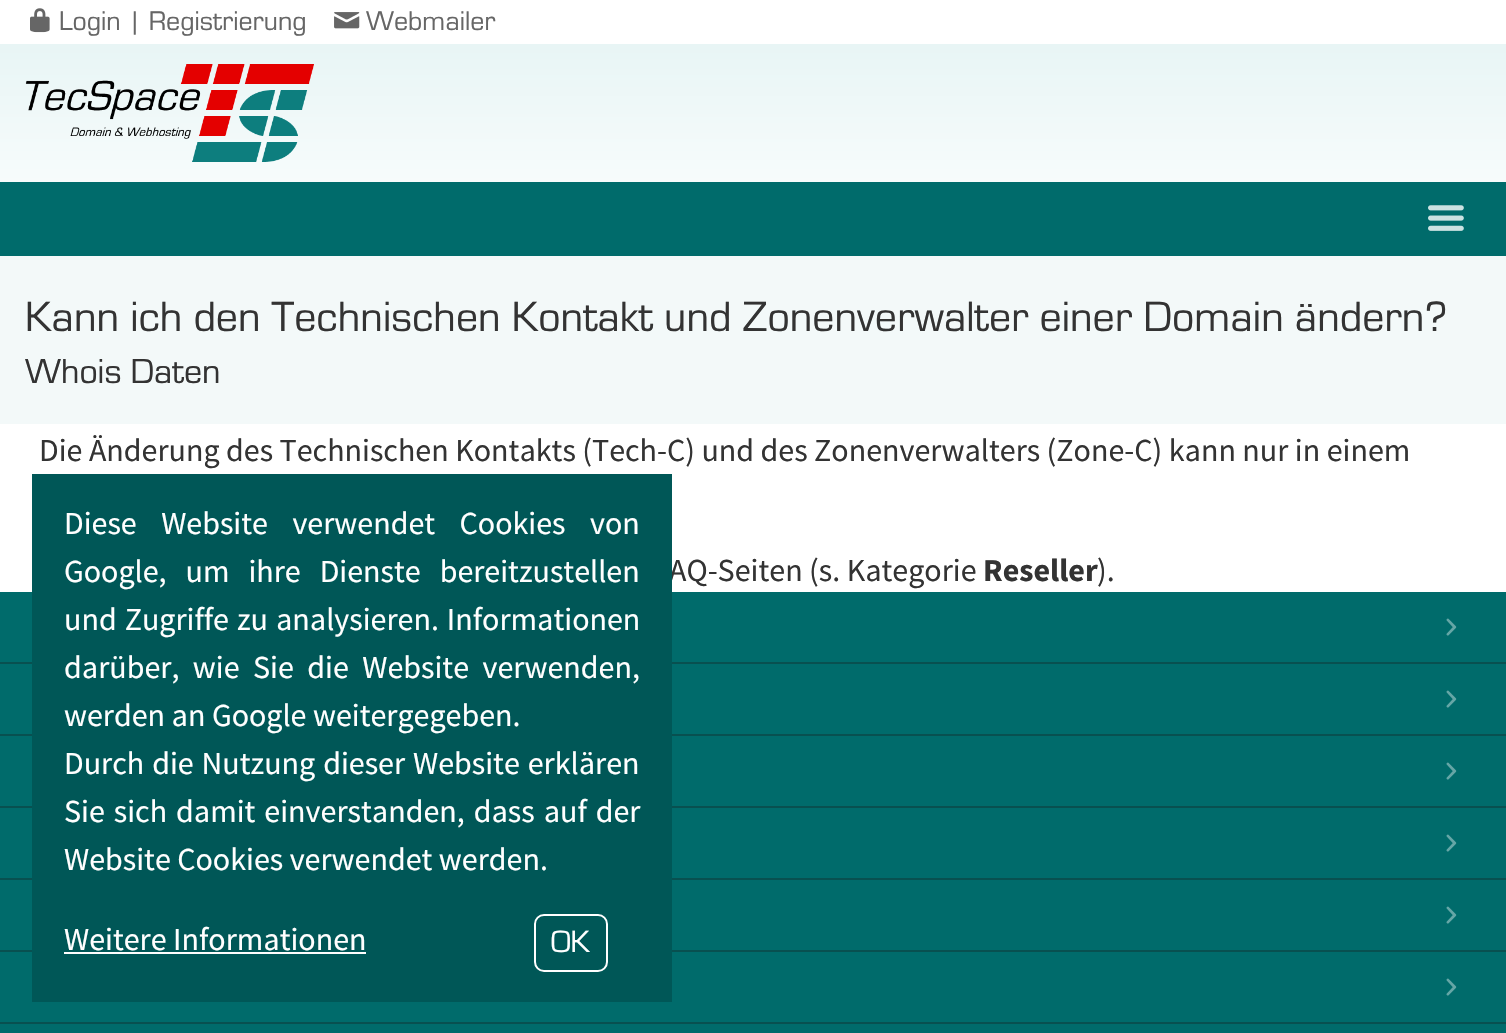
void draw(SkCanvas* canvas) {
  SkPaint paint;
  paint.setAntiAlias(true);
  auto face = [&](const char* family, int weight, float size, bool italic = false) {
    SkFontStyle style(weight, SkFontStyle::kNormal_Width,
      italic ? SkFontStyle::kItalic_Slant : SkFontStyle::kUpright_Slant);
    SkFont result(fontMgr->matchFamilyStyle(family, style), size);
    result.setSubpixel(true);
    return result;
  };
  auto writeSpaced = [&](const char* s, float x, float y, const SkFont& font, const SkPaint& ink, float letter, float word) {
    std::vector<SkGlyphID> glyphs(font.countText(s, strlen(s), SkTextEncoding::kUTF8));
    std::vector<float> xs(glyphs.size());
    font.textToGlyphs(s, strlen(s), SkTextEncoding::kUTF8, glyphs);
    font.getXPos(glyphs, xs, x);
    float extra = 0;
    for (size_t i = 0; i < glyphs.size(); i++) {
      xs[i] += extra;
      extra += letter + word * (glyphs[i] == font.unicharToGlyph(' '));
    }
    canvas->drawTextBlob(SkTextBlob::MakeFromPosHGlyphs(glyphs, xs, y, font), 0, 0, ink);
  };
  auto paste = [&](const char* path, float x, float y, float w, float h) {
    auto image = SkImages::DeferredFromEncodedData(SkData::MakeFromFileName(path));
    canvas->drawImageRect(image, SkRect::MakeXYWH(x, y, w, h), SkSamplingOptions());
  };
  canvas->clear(0xffffffff);
  {
    const SkColor colors[] = {0xffe3f3f3, 0xffffffff};
    const float stops[] = {0, 1};
    const SkPoint ends[] = {{753, 0}, {753, 256}};
    paint.setShader(SkGradientShader::MakeLinear(ends, colors, stops, 2, SkTileMode::kClamp));
    paint.setAlpha(255);
  }
  canvas->drawRect(SkRect::MakeXYWH(0, 44, 1506, 138), paint);
  paste("img/1.png", 30, 8, 20, 25);
  paste("img/2.png", 334, 12, 26, 17);
  paste("img/3.png", 25, 64, 289, 98);
  paint.setShader(nullptr);
  paint.setColor(0xff006b6b);
  canvas->drawRect(SkRect::MakeXYWH(0, 182, 1506, 74), paint);
  paste("img/4.png", 1428, 205, 36, 26);
  {
    const struct { float x, y, w, h; SkColor color; } items[] = {
      {0, 256, 1506, 168, 0xfff3f9f9},
      {0, 592, 1506, 441, 0xff006b6b},
      {0, 662, 1506, 2, 0xff085050},
    };
    for (auto [x, y, w, h, color] : items) {
      paint.setColor(color);
      canvas->drawRect(SkRect::MakeXYWH(x, y, w, h), paint);
    }
  }
  paste("img/5.png", 1446, 618, 11, 18);
  canvas->drawRect(SkRect::MakeXYWH(0, 734, 1506, 2), paint);
  paste("img/5.png", 1446, 690, 11, 18);
  canvas->drawRect(SkRect::MakeXYWH(0, 806, 1506, 2), paint);
  paste("img/5.png", 1446, 762, 11, 18);
  canvas->drawRect(SkRect::MakeXYWH(0, 878, 1506, 2), paint);
  paste("img/5.png", 1446, 834, 11, 18);
  canvas->drawRect(SkRect::MakeXYWH(0, 950, 1506, 2), paint);
  paste("img/5.png", 1446, 906, 11, 18);
  canvas->drawRect(SkRect::MakeXYWH(0, 1022, 1506, 2), paint);
  paste("img/5.png", 1446, 978, 11, 18);
  auto f0 = face("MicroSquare", 400, 28);
  paint.setColor(0xff666666);
  canvas->drawString("Login | Registrierung", 59, 30, f0, paint);
  canvas->drawString("Webmailer", 366, 30, f0, paint);
  auto f1 = face("MicroSquare", 400, 44);
  paint.setColor(0xff333333);
  canvas->drawString("Kann ich den Technischen Kontakt und Zonenverwalter einer Domain ändern?", 25, 331, f1, paint);
  auto f2 = face("MicroSquare", 400, 36);
  canvas->drawString("Whois Daten", 25, 383, f2, paint);
  auto f3 = face("Source Sans Pro", 400, 32);
  canvas->drawString("Die Änderung des Technischen Kontakts (Tech-C) und des Zonenverwalters (Zone-C) kann nur in einem", 39, 461, f3, paint);
  canvas->drawString("AQ-Seiten (s. Kategorie", 669, 581, f3, paint);
  auto f4 = face("Source Sans Pro", 700, 32);
  canvas->drawString("Reseller", 983, 581, f4, paint);
  canvas->drawString(").", 1097, 581, f3, paint);
  paint.setColor(0xff005757);
  canvas->drawRect(SkRect::MakeXYWH(32, 474, 640, 528), paint);
  paint.setColor(0xffffffff);
  writeSpaced("Diese Website verwendet Cookies von", 64, 534, f3, paint, 0, 18);
  writeSpaced("Google, um ihre Dienste bereitzustellen", 64, 582, f3, paint, 0, 12.5f);
  writeSpaced("und Zugriffe zu analysieren. Informationen", 64, 630, f3, paint, 0, 1.5f);
  writeSpaced("darüber, wie Sie die Website verwenden,", 64, 678, f3, paint, 0, 7);
  canvas->drawString("werden an Google weitergegeben.", 64, 726, f3, paint);
  writeSpaced("Durch die Nutzung dieser Website erklären", 64, 774, f3, paint, 0, 1.5f);
  writeSpaced("Sie sich damit einverstanden, dass auf der", 64, 822, f3, paint, 0, 2.5f);
  canvas->drawString("Website Cookies verwendet werden.", 64, 870, f3, paint);
  canvas->drawString("Weitere Informationen", 64, 950, f3, paint);
  canvas->drawRect(SkRect::MakeXYWH(64, 952, 302, 2), paint);
  paint.setStroke(true);
  paint.setStrokeWidth(2);
  canvas->drawRoundRect(SkRect::MakeXYWH(535, 915, 72, 56), 9, 9, paint);
  auto f5 = face("MicroSquare", 400, 32);
  paint.setStroke(false);
  canvas->drawString("OK", 551, 952, f5, paint);
}
